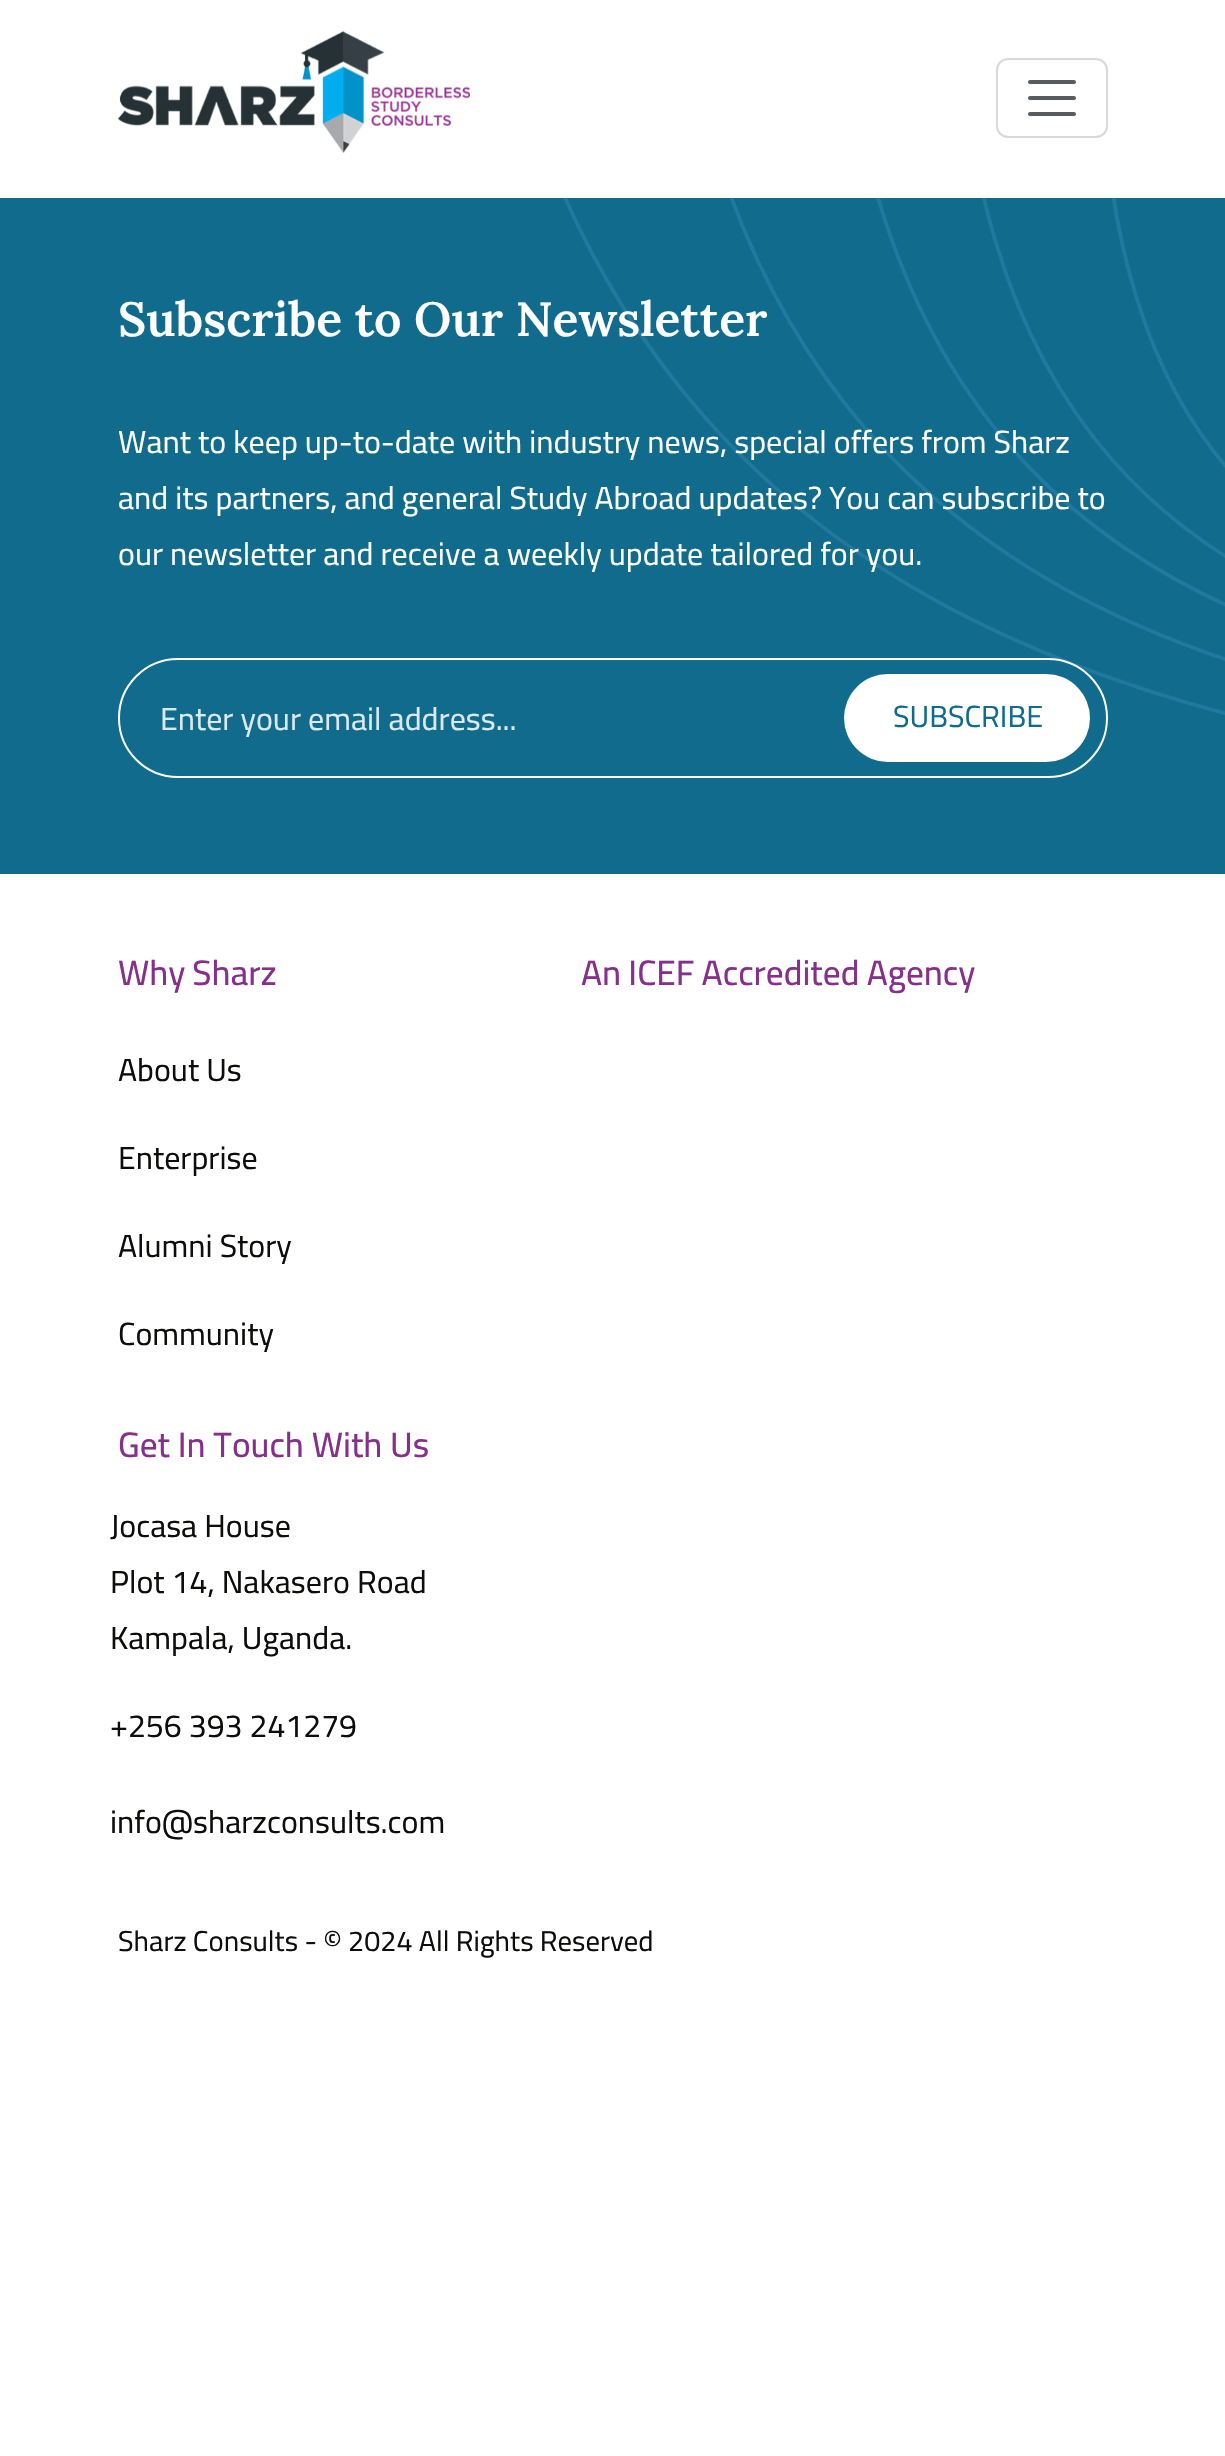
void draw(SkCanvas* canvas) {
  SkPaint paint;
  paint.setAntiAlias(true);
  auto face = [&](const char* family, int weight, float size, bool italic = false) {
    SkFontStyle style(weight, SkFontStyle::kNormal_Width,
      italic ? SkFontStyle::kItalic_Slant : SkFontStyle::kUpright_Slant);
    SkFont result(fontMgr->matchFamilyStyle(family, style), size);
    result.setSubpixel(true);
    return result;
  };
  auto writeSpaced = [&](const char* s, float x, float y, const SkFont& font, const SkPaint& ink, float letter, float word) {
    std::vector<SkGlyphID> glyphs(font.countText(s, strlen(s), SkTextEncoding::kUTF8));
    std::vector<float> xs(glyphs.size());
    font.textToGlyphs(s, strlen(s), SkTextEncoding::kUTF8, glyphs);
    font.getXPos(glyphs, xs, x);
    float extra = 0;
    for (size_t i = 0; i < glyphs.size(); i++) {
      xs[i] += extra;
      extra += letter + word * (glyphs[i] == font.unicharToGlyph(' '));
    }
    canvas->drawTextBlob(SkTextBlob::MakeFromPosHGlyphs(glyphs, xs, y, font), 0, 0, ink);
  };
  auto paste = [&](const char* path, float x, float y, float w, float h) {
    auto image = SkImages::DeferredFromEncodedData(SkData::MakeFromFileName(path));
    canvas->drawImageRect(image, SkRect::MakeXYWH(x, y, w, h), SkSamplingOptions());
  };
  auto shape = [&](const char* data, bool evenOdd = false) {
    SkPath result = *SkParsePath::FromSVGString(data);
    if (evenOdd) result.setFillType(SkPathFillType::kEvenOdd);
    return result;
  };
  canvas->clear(0xffffffff);
  paste("img/1.png", 117, 31, 353, 122);
  paint.setStroke(true);
  paint.setStrokeWidth(2);
  paint.setColor(0xffd9d9d9);
  canvas->drawRoundRect(SkRect::MakeXYWH(997, 59, 110, 78), 11, 11, paint);
  paint.setStrokeWidth(4);
  paint.setStrokeCap(SkPaint::kRound_Cap);
  paint.setColor(0xff595c5f);
  canvas->drawPath(shape("M1030 82H1074M1030 98H1074M1030 114H1074"), paint);
  paint.setStroke(false);
  paint.setColor(0xff106b8c);
  canvas->drawRect(SkRect::MakeXYWH(0, 198, 1225, 676), paint);
  paste("img/2.png", 562, 198, 663, 517);
  paint.setStroke(true);
  paint.setStrokeWidth(2);
  paint.setStrokeCap(SkPaint::kButt_Cap);
  paint.setColor(0xffffffff);
  canvas->drawRoundRect(SkRect::MakeXYWH(119, 659, 988, 118), 59, 59, paint);
  paint.setStroke(false);
  canvas->drawRoundRect(SkRect::MakeXYWH(844, 674, 246, 88), 44, 44, paint);
  auto f0 = face("Lora", 600, 48);
  canvas->drawString("Subscribe to Our Newsletter", 118, 336, f0, paint);
  auto f1 = face("Cairo", 400, 32);
  {
    const struct { const char* s; float x, y; } items[] = {
      {"Want to keep up-to-date with industry news, special offers from Sharz", 118, 453},
      {"and its partners, and general Study Abroad updates? You can subscribe to", 118, 509},
      {"our newsletter and receive a weekly update tailored for you.", 118, 565},
    };
    for (auto [s, x, y] : items) {
      canvas->drawString(s, x, y, f1, paint);
    }
  }
  paint.setColor(0xffdbe9ee);
  canvas->drawString("Enter your email address...", 160, 730, f1, paint);
  auto f2 = face("Cairo", 400, 30.5f);
  paint.setColor(0xff106b8c);
  canvas->drawString("SUBSCRIBE", 893, 727, f2, paint);
  auto f3 = face("Cairo", 500, 35.25f);
  paint.setColor(0xff86308b);
  writeSpaced("Why Sharz", 118, 985, f3, paint, 0, -1);
  paint.setColor(0xff0d0e0c);
  {
    const struct { const char* s; float x, y; } items[] = {
      {"About Us", 118, 1081},
      {"Enterprise", 118, 1169},
      {"Alumni Story", 118, 1257},
      {"Community", 118, 1345},
    };
    for (auto [s, x, y] : items) {
      canvas->drawString(s, x, y, f1, paint);
    }
  }
  paint.setColor(0xff86308b);
  writeSpaced("An ICEF Accredited Agency", 581, 985, f3, paint, 0, -0.5f);
  canvas->drawString("Get In Touch With Us", 118, 1457, f3, paint);
  paint.setColor(0xff0d0e0c);
  {
    const struct { const char* s; float x, y; } items[] = {
      {"Jocasa House", 110, 1537},
      {"Plot 14, Nakasero Road", 110, 1593},
      {"Kampala, Uganda.", 110, 1649},
      {"+256 393 241279", 110, 1737},
      {"info@sharzconsults.com", 110, 1833},
    };
    for (auto [s, x, y] : items) {
      canvas->drawString(s, x, y, f1, paint);
    }
  }
  auto f4 = face("Cairo", 400, 28.75f);
  canvas->drawString("Sharz Consults - © 2024 All Rights Reserved", 118, 1951, f4, paint);
}
